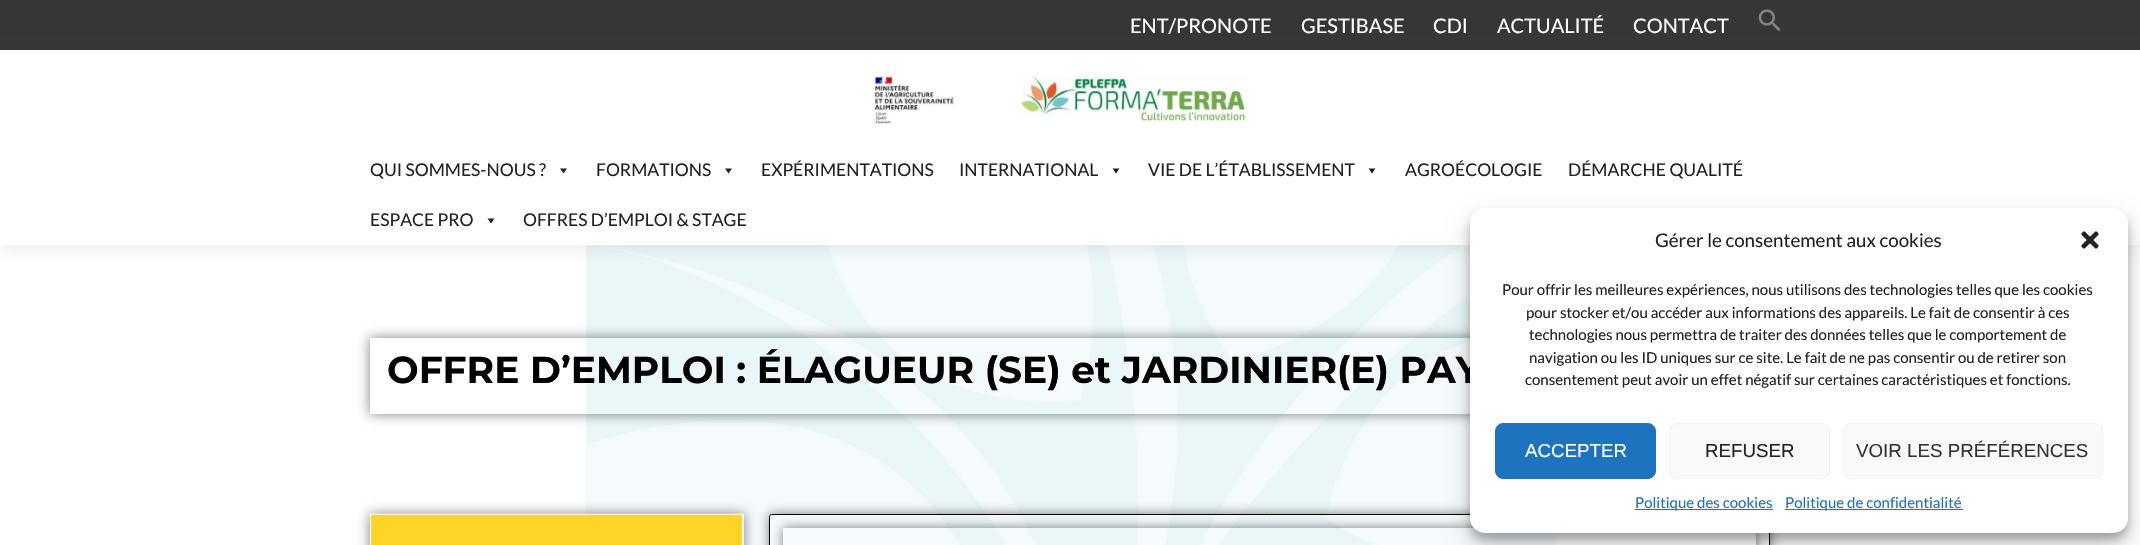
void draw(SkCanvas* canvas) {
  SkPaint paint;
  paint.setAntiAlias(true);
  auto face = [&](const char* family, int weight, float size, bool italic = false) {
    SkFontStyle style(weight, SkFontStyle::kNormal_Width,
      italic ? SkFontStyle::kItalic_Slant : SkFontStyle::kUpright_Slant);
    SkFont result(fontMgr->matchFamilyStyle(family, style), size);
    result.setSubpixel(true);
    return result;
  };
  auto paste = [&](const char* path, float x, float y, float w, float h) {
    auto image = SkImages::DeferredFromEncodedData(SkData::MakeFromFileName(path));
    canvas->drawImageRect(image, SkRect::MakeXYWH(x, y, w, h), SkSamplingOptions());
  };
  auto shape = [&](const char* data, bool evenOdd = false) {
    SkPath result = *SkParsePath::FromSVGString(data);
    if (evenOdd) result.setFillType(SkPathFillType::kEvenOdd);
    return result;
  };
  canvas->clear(0xffffffff);
  paste("img/1.png", 586, 245, 969, 300);
  paint.setColor(0xff363537);
  canvas->drawRect(SkRect::MakeXYWH(0, 0, 2140, 50), paint);
  paste("img/2.png", 1758, 9, 23, 23);
  paint.setColor(0x14323232);
  paint.setMaskFilter(SkMaskFilter::MakeBlur(kNormal_SkBlurStyle, 7));
  canvas->drawRect(SkRect::MakeXYWH(0, 56, 2140, 195), paint);
  paint.setMaskFilter(nullptr);
  paint.setColor(0xffffffff);
  canvas->drawRect(SkRect::MakeXYWH(0, 50, 2140, 195), paint);
  paste("img/3.png", 874, 75, 375, 49);
  paint.setColor(0xff222222);
  canvas->drawPath(shape("M567 168.5L563.5 173.5L560 168.5Z"), paint);
  canvas->drawPath(shape("M732 168.5L728.5 173.5L725 168.5Z"), paint);
  canvas->drawPath(shape("M1119.5 168.5L1116 173.5L1112.5 168.5Z"), paint);
  canvas->drawPath(shape("M1375.5 168.5L1372 173.5L1368.5 168.5Z"), paint);
  canvas->drawPath(shape("M494.5 218.5L491 223.5L487.5 218.5Z"), paint);
  canvas->save();
  canvas->clipPath(shape("M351 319H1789V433H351ZM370 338H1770V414H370Z", true), true);
  paint.setColor(0x80000000);
  paint.setMaskFilter(SkMaskFilter::MakeBlur(kNormal_SkBlurStyle, 6));
  canvas->drawRect(SkRect::MakeXYWH(370, 338, 1400, 76), paint);
  paint.setMaskFilter(nullptr);
  canvas->restore();
  paint.setMaskFilter(SkMaskFilter::MakeBlur(kNormal_SkBlurStyle, 6));
  canvas->drawRect(SkRect::MakeXYWH(370, 514, 374, 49), paint);
  paint.setMaskFilter(nullptr);
  paste("img/4.png", 370, 513, 374, 32);
  canvas->save();
  canvas->clipPath(shape("M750 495H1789V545H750ZM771.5 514H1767.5C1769 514 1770 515 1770 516.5V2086.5C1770 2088 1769 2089 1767.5 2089H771.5C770 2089 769 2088 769 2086.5V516.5C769 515 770 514 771.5 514Z", true), true);
  paint.setMaskFilter(SkMaskFilter::MakeBlur(kNormal_SkBlurStyle, 6));
  canvas->drawRoundRect(SkRect::MakeXYWH(769, 514, 1001, 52), 2.5f, 2.5f, paint);
  paint.setMaskFilter(nullptr);
  canvas->restore();
  paint.setStroke(true);
  paint.setStrokeWidth(1);
  paint.setColor(0xff000000);
  canvas->drawRoundRect(SkRect::MakeXYWH(769.5f, 514.5f, 1000, 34), 2, 2, paint);
  canvas->save();
  canvas->clipPath(shape("M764 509H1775V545H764ZM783 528H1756V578H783Z", true), true);
  paint.setStroke(false);
  paint.setColor(0x80000000);
  paint.setMaskFilter(SkMaskFilter::MakeBlur(kNormal_SkBlurStyle, 6));
  canvas->drawRect(SkRect::MakeXYWH(783, 528, 973, 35), paint);
  paint.setMaskFilter(nullptr);
  canvas->restore();
  paint.setColor(0x3b000000);
  paint.setMaskFilter(SkMaskFilter::MakeBlur(kNormal_SkBlurStyle, 4));
  canvas->drawRoundRect(SkRect::MakeXYWH(1470, 215, 658, 325), 15, 15, paint);
  paint.setMaskFilter(nullptr);
  paint.setColor(0x30000000);
  paint.setMaskFilter(SkMaskFilter::MakeBlur(kNormal_SkBlurStyle, 12.5f));
  canvas->drawRoundRect(SkRect::MakeXYWH(1470, 220, 658, 325), 15, 15, paint);
  paint.setMaskFilter(nullptr);
  auto f0 = face("Lato", 400, 20);
  paint.setColor(0xffffffff);
  {
    const struct { const char* s; float x, y; } items[] = {
      {"ENT/PRONOTE", 1130, 33},
      {"GESTIBASE", 1301, 33},
      {"CDI", 1433, 33},
      {"ACTUALITÉ", 1497, 33},
      {"CONTACT", 1633, 33},
    };
    for (auto [s, x, y] : items) {
      canvas->drawString(s, x, y, f0, paint);
    }
  }
  auto f1 = face("Lato", 400, 17.5f);
  paint.setColor(0xff222222);
  {
    const struct { const char* s; float x, y; } items[] = {
      {"QUI SOMMES-NOUS ?", 370, 176},
      {"FORMATIONS", 596, 176},
      {"EXPÉRIMENTATIONS", 761, 176},
      {"INTERNATIONAL", 959, 176},
      {"VIE DE L’ÉTABLISSEMENT", 1148, 176},
      {"AGROÉCOLOGIE", 1405, 176},
      {"DÉMARCHE QUALITÉ", 1568, 176},
      {"ESPACE PRO", 370, 226},
      {"OFFRES D’EMPLOI & STAGE", 523, 226},
    };
    for (auto [s, x, y] : items) {
      canvas->drawString(s, x, y, f1, paint);
    }
  }
  auto f2 = face("Montserrat", 100, 37.5f);
  paint.setColor(0xff000000);
  canvas->drawString("OFFRE D’EMPLOI : ÉLAGUEUR (SE) et JARDINIER(E) PAY", 387, 383, f2, paint);
  paint.setColor(0xffffffff);
  canvas->drawRoundRect(SkRect::MakeXYWH(1470, 208, 658, 325), 15, 15, paint);
  auto f3 = face("Lato", 400, 18.75f);
  paint.setColor(0xff222222);
  canvas->drawString("Gérer le consentement aux cookies", 1655, 247, f3, paint);
  paste("img/5.png", 2081, 231, 18, 18);
  auto f4 = face("Lato", 400, 15);
  {
    const struct { const char* s; float x, y; } items[] = {
      {"Pour offrir les meilleures expériences, nous utilisons des technologies telles que les cookies", 1502, 295},
      {"pour stocker et/ou accéder aux informations des appareils. Le fait de consentir à ces", 1526, 318},
      {"technologies nous permettra de traiter des données telles que le comportement de", 1529, 340},
      {"navigation ou les ID uniques sur ce site. Le fait de ne pas consentir ou de retirer son", 1529, 363},
      {"consentement peut avoir un effet négatif sur certaines caractéristiques et fonctions.", 1525, 385},
    };
    for (auto [s, x, y] : items) {
      canvas->drawString(s, x, y, f4, paint);
    }
  }
  paint.setColor(0xff1e73be);
  canvas->drawRoundRect(SkRect::MakeXYWH(1495.5f, 423.5f, 160, 55), 7.5f, 7.5f, paint);
  paint.setStroke(true);
  canvas->drawRoundRect(SkRect::MakeXYWH(1495.5f, 423.5f, 160, 55), 7.5f, 7.5f, paint);
  auto f5 = face("Liberation Sans", 400, 18.75f);
  paint.setStroke(false);
  paint.setColor(0xffffffff);
  canvas->drawString("ACCEPTER", 1525, 457, f5, paint);
  paint.setColor(0xfff9f9f9);
  canvas->drawRoundRect(SkRect::MakeXYWH(1669.5f, 423.5f, 160, 55), 7.5f, 7.5f, paint);
  paint.setStroke(true);
  paint.setColor(0xfff2f2f2);
  canvas->drawRoundRect(SkRect::MakeXYWH(1669.5f, 423.5f, 160, 55), 7.5f, 7.5f, paint);
  paint.setStroke(false);
  paint.setColor(0xff222222);
  canvas->drawString("REFUSER", 1705, 457, f5, paint);
  paint.setColor(0xfff9f9f9);
  canvas->drawRoundRect(SkRect::MakeXYWH(1843.5f, 423.5f, 259, 55), 7.5f, 7.5f, paint);
  paint.setStroke(true);
  paint.setColor(0xfff2f2f2);
  canvas->drawRoundRect(SkRect::MakeXYWH(1843.5f, 423.5f, 259, 55), 7.5f, 7.5f, paint);
  paint.setStroke(false);
  paint.setColor(0xff333333);
  canvas->drawString("VOIR LES PRÉFÉRENCES", 1856, 457, f5, paint);
  paint.setColor(0xff1e73be);
  canvas->drawRect(SkRect::MakeXYWH(1635, 509, 138, 1), paint);
  canvas->drawString("Politique des cookies", 1635, 508, f4, paint);
  canvas->drawRect(SkRect::MakeXYWH(1785, 509, 178, 1), paint);
  canvas->drawString("Politique de confidentialité", 1785, 508, f4, paint);
}
